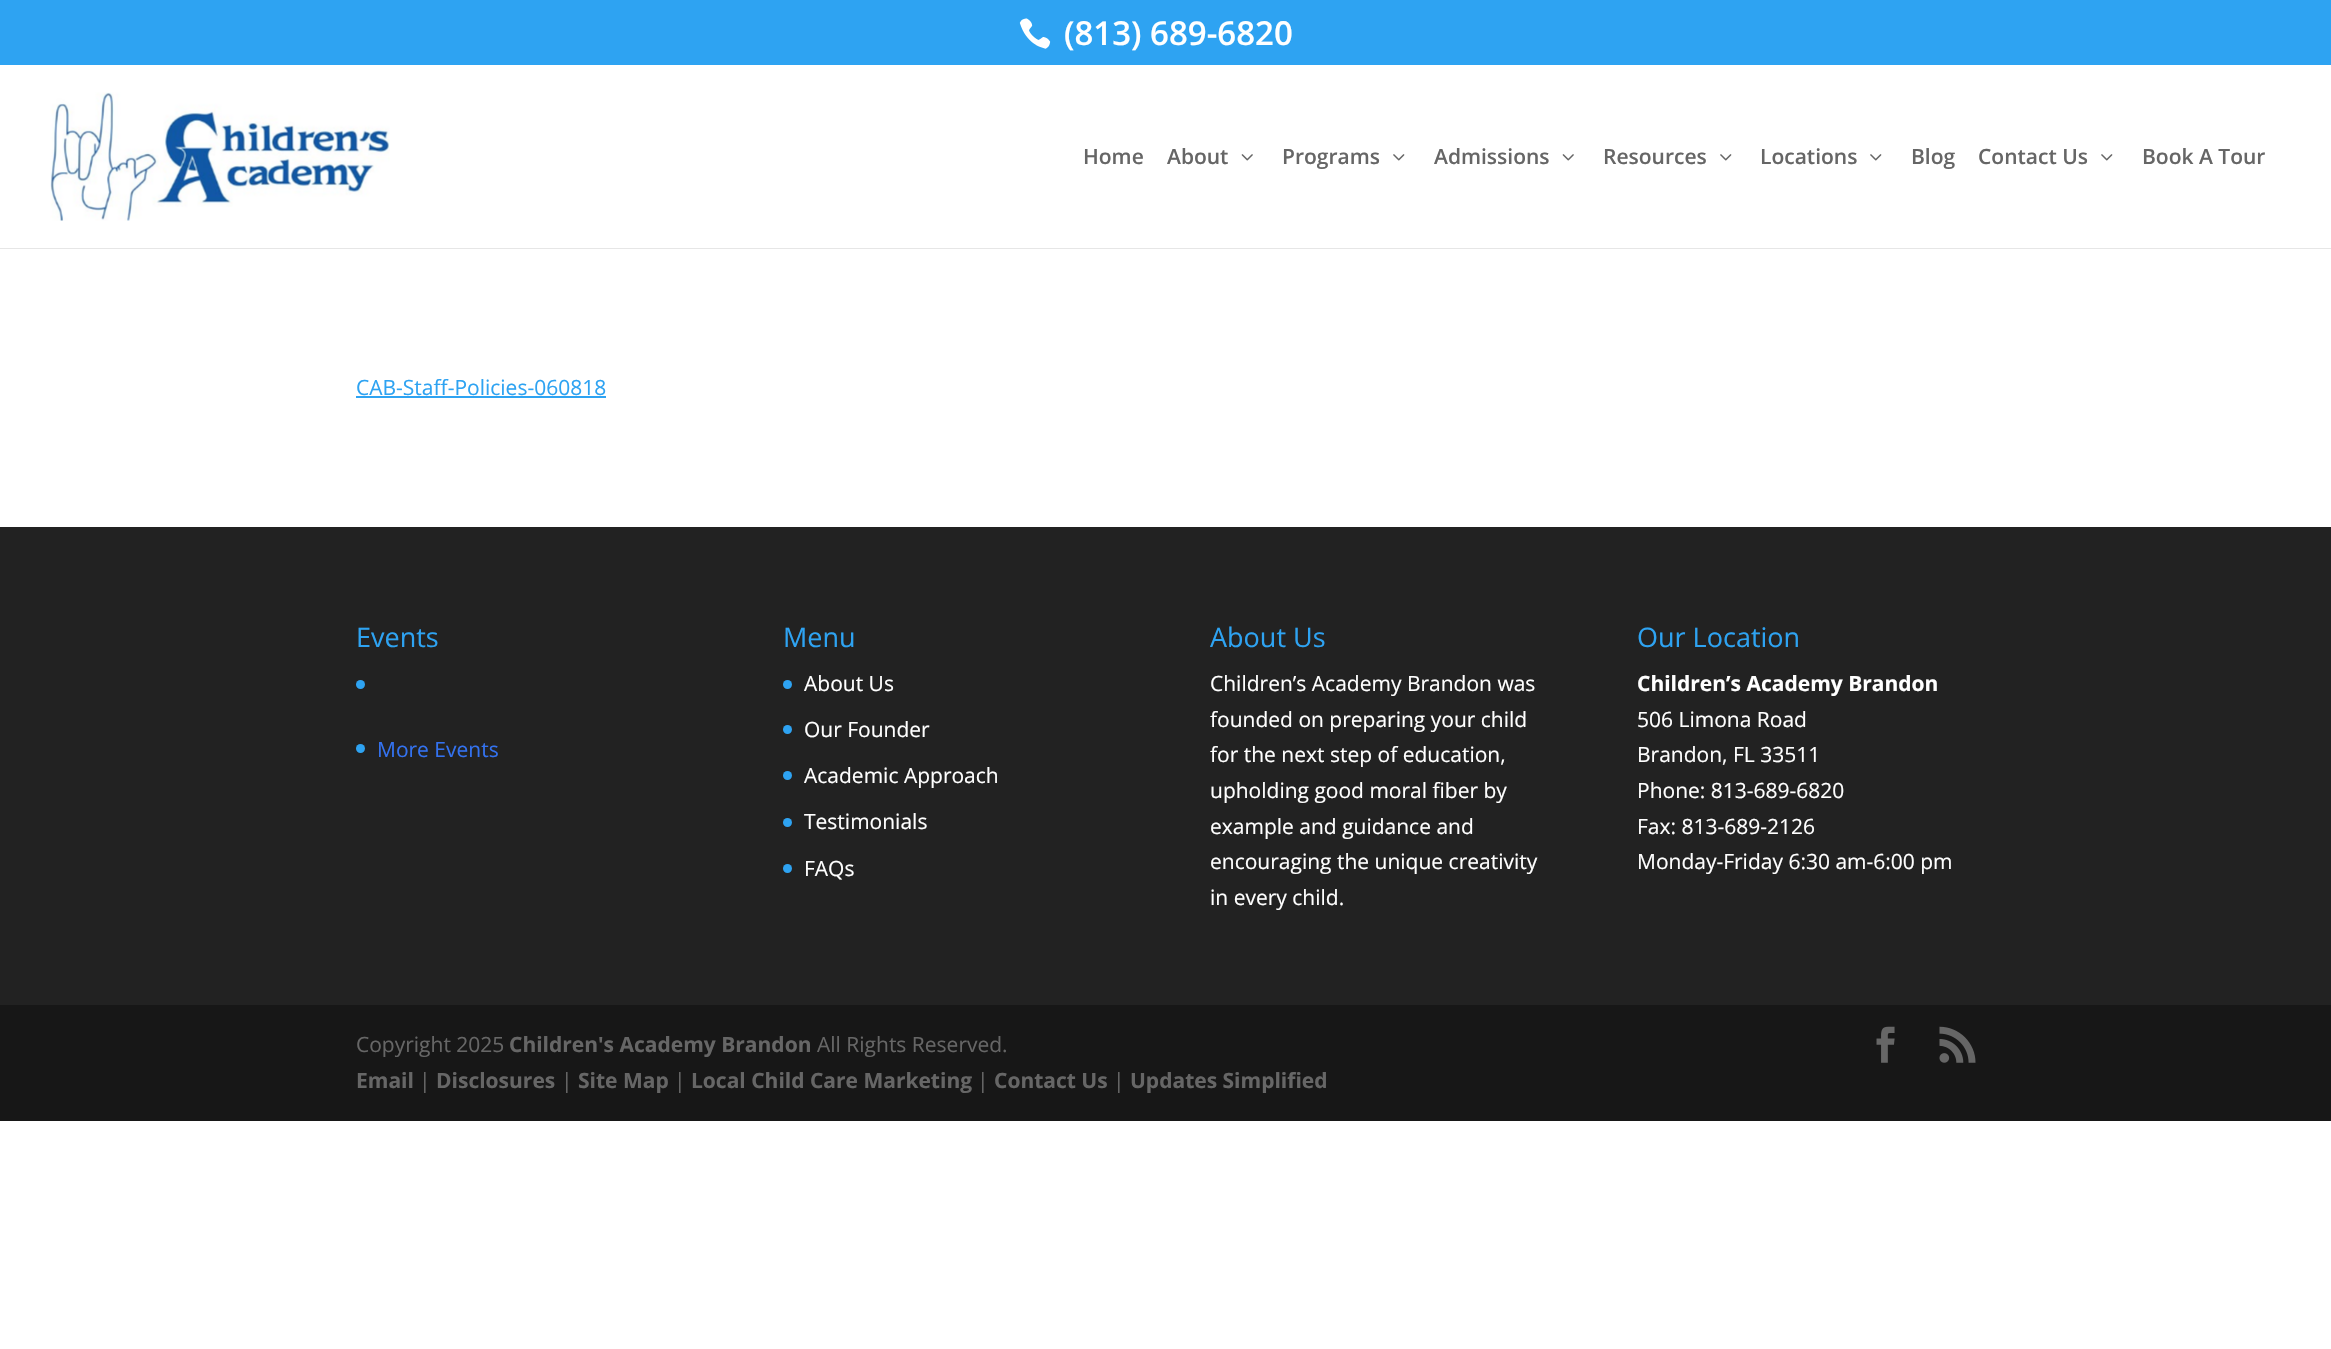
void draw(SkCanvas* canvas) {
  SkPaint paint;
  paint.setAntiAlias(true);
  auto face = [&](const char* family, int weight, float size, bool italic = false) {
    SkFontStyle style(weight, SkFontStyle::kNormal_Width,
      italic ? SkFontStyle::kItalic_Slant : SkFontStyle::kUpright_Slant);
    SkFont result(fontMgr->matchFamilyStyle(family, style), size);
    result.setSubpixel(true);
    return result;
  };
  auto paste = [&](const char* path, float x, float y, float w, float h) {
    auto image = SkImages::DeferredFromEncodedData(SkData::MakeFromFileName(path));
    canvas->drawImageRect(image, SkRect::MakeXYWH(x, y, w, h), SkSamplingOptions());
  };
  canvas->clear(0xffffffff);
  paint.setColor(0xff2ea3f2);
  canvas->drawRect(SkRect::MakeXYWH(0, 0, 2331, 65), paint);
  paste("img/1.png", 1019, 18, 32, 31);
  paint.setColor(0xffe6e6e6);
  canvas->drawRect(SkRect::MakeXYWH(0, 248, 2331, 1), paint);
  paste("img/2.png", 50, 92, 340, 129);
  paste("img/3.png", 1241, 154, 12, 7);
  paste("img/4.png", 1393, 154, 12, 7);
  paste("img/3.png", 1562, 154, 12, 7);
  paste("img/4.png", 1720, 154, 12, 7);
  paste("img/4.png", 1870, 154, 12, 7);
  paste("img/4.png", 2101, 154, 12, 7);
  paint.setColor(0xff2ea3f2);
  canvas->drawRect(SkRect::MakeXYWH(356, 396, 250, 2), paint);
  paint.setColor(0xff222222);
  canvas->drawRect(SkRect::MakeXYWH(0, 527, 2331, 478), paint);
  paint.setColor(0xff2ea3f2);
  canvas->drawCircle(360.5f, 684.5f, 4.5f, paint);
  canvas->drawCircle(360.5f, 748.5f, 4.5f, paint);
  canvas->drawCircle(787.5f, 684.5f, 4.5f, paint);
  canvas->drawCircle(787.5f, 729.5f, 4.5f, paint);
  canvas->drawCircle(787.5f, 775.5f, 4.5f, paint);
  canvas->drawCircle(787.5f, 822.5f, 4.5f, paint);
  canvas->drawCircle(787.5f, 868.5f, 4.5f, paint);
  paint.setColor(0xff171717);
  canvas->drawRect(SkRect::MakeXYWH(0, 1005, 2331, 116), paint);
  paste("img/5.png", 1876, 1026, 19, 37);
  paste("img/6.png", 1939, 1026, 37, 37);
  auto f0 = face("Open Sans", 600, 33);
  paint.setColor(0xffffffff);
  canvas->drawString("(813) 689-6820", 1064, 45, f0, paint);
  auto f1 = face("Open Sans", 600, 21);
  paint.setColor(0xff666666);
  {
    const struct { const char* s; float x, y; } items[] = {
      {"Home", 1083, 164},
      {"About", 1167, 164},
      {"Programs", 1282, 164},
      {"Admissions", 1434, 164},
      {"Resources", 1603, 164},
      {"Locations", 1760, 164},
      {"Blog", 1911, 164},
      {"Contact Us", 1978, 164},
      {"Book A Tour", 2142, 164},
    };
    for (auto [s, x, y] : items) {
      canvas->drawString(s, x, y, f1, paint);
    }
  }
  auto f2 = face("Open Sans", 400, 21);
  paint.setColor(0xff2ea3f2);
  canvas->drawString("CAB-Staff-Policies-060818", 356, 395, f2, paint);
  auto f3 = face("Open Sans", 400, 27);
  canvas->drawString("Events", 356, 647, f3, paint);
  paint.setColor(0xff3372f0);
  canvas->drawString("More Events", 377, 757, f2, paint);
  paint.setColor(0xff2ea3f2);
  canvas->drawString("Menu", 783, 647, f3, paint);
  paint.setColor(0xffffffff);
  {
    const struct { const char* s; float x, y; } items[] = {
      {"About Us", 804, 691},
      {"Our Founder", 804, 737},
      {"Academic Approach", 804, 783},
      {"Testimonials", 804, 829},
      {"FAQs", 804, 876},
    };
    for (auto [s, x, y] : items) {
      canvas->drawString(s, x, y, f2, paint);
    }
  }
  paint.setColor(0xff2ea3f2);
  canvas->drawString("About Us", 1210, 647, f3, paint);
  paint.setColor(0xffffffff);
  {
    const struct { const char* s; float x, y; } items[] = {
      {"Children’s Academy Brandon was", 1210, 691},
      {"founded on preparing your child", 1210, 727},
      {"for the next step of education,", 1210, 762},
      {"upholding good moral fiber by", 1210, 798},
      {"example and guidance and", 1210, 834},
      {"encouraging the unique creativity", 1210, 869},
      {"in every child.", 1210, 905},
    };
    for (auto [s, x, y] : items) {
      canvas->drawString(s, x, y, f2, paint);
    }
  }
  paint.setColor(0xff2ea3f2);
  canvas->drawString("Our Location", 1637, 647, f3, paint);
  auto f4 = face("Open Sans", 700, 21);
  paint.setColor(0xffffffff);
  canvas->drawString("Children’s Academy Brandon", 1637, 691, f4, paint);
  {
    const struct { const char* s; float x, y; } items[] = {
      {"506 Limona Road", 1637, 727},
      {"Brandon, FL 33511", 1637, 762},
      {"Phone: 813-689-6820", 1637, 798},
      {"Fax: 813-689-2126", 1637, 834},
      {"Monday-Friday 6:30 am-6:00 pm", 1637, 869},
    };
    for (auto [s, x, y] : items) {
      canvas->drawString(s, x, y, f2, paint);
    }
  }
  paint.setColor(0xff666666);
  canvas->drawString("Copyright 2025", 356, 1052, f2, paint);
  canvas->drawString("Children's Academy Brandon", 509, 1052, f4, paint);
  canvas->drawString("All Rights Reserved.", 817, 1052, f2, paint);
  canvas->drawString("Email", 356, 1088, f4, paint);
  canvas->drawString("|", 419, 1088, f2, paint);
  canvas->drawString("Disclosures", 436, 1088, f4, paint);
  canvas->drawString("|", 561, 1088, f2, paint);
  canvas->drawString("Site Map", 578, 1088, f4, paint);
  canvas->drawString("|", 674, 1088, f2, paint);
  canvas->drawString("Local Child Care Marketing", 691, 1088, f4, paint);
  canvas->drawString("|", 977, 1088, f2, paint);
  canvas->drawString("Contact Us", 994, 1088, f4, paint);
  canvas->drawString("|", 1113, 1088, f2, paint);
  canvas->drawString("Updates Simplified", 1130, 1088, f4, paint);
}
